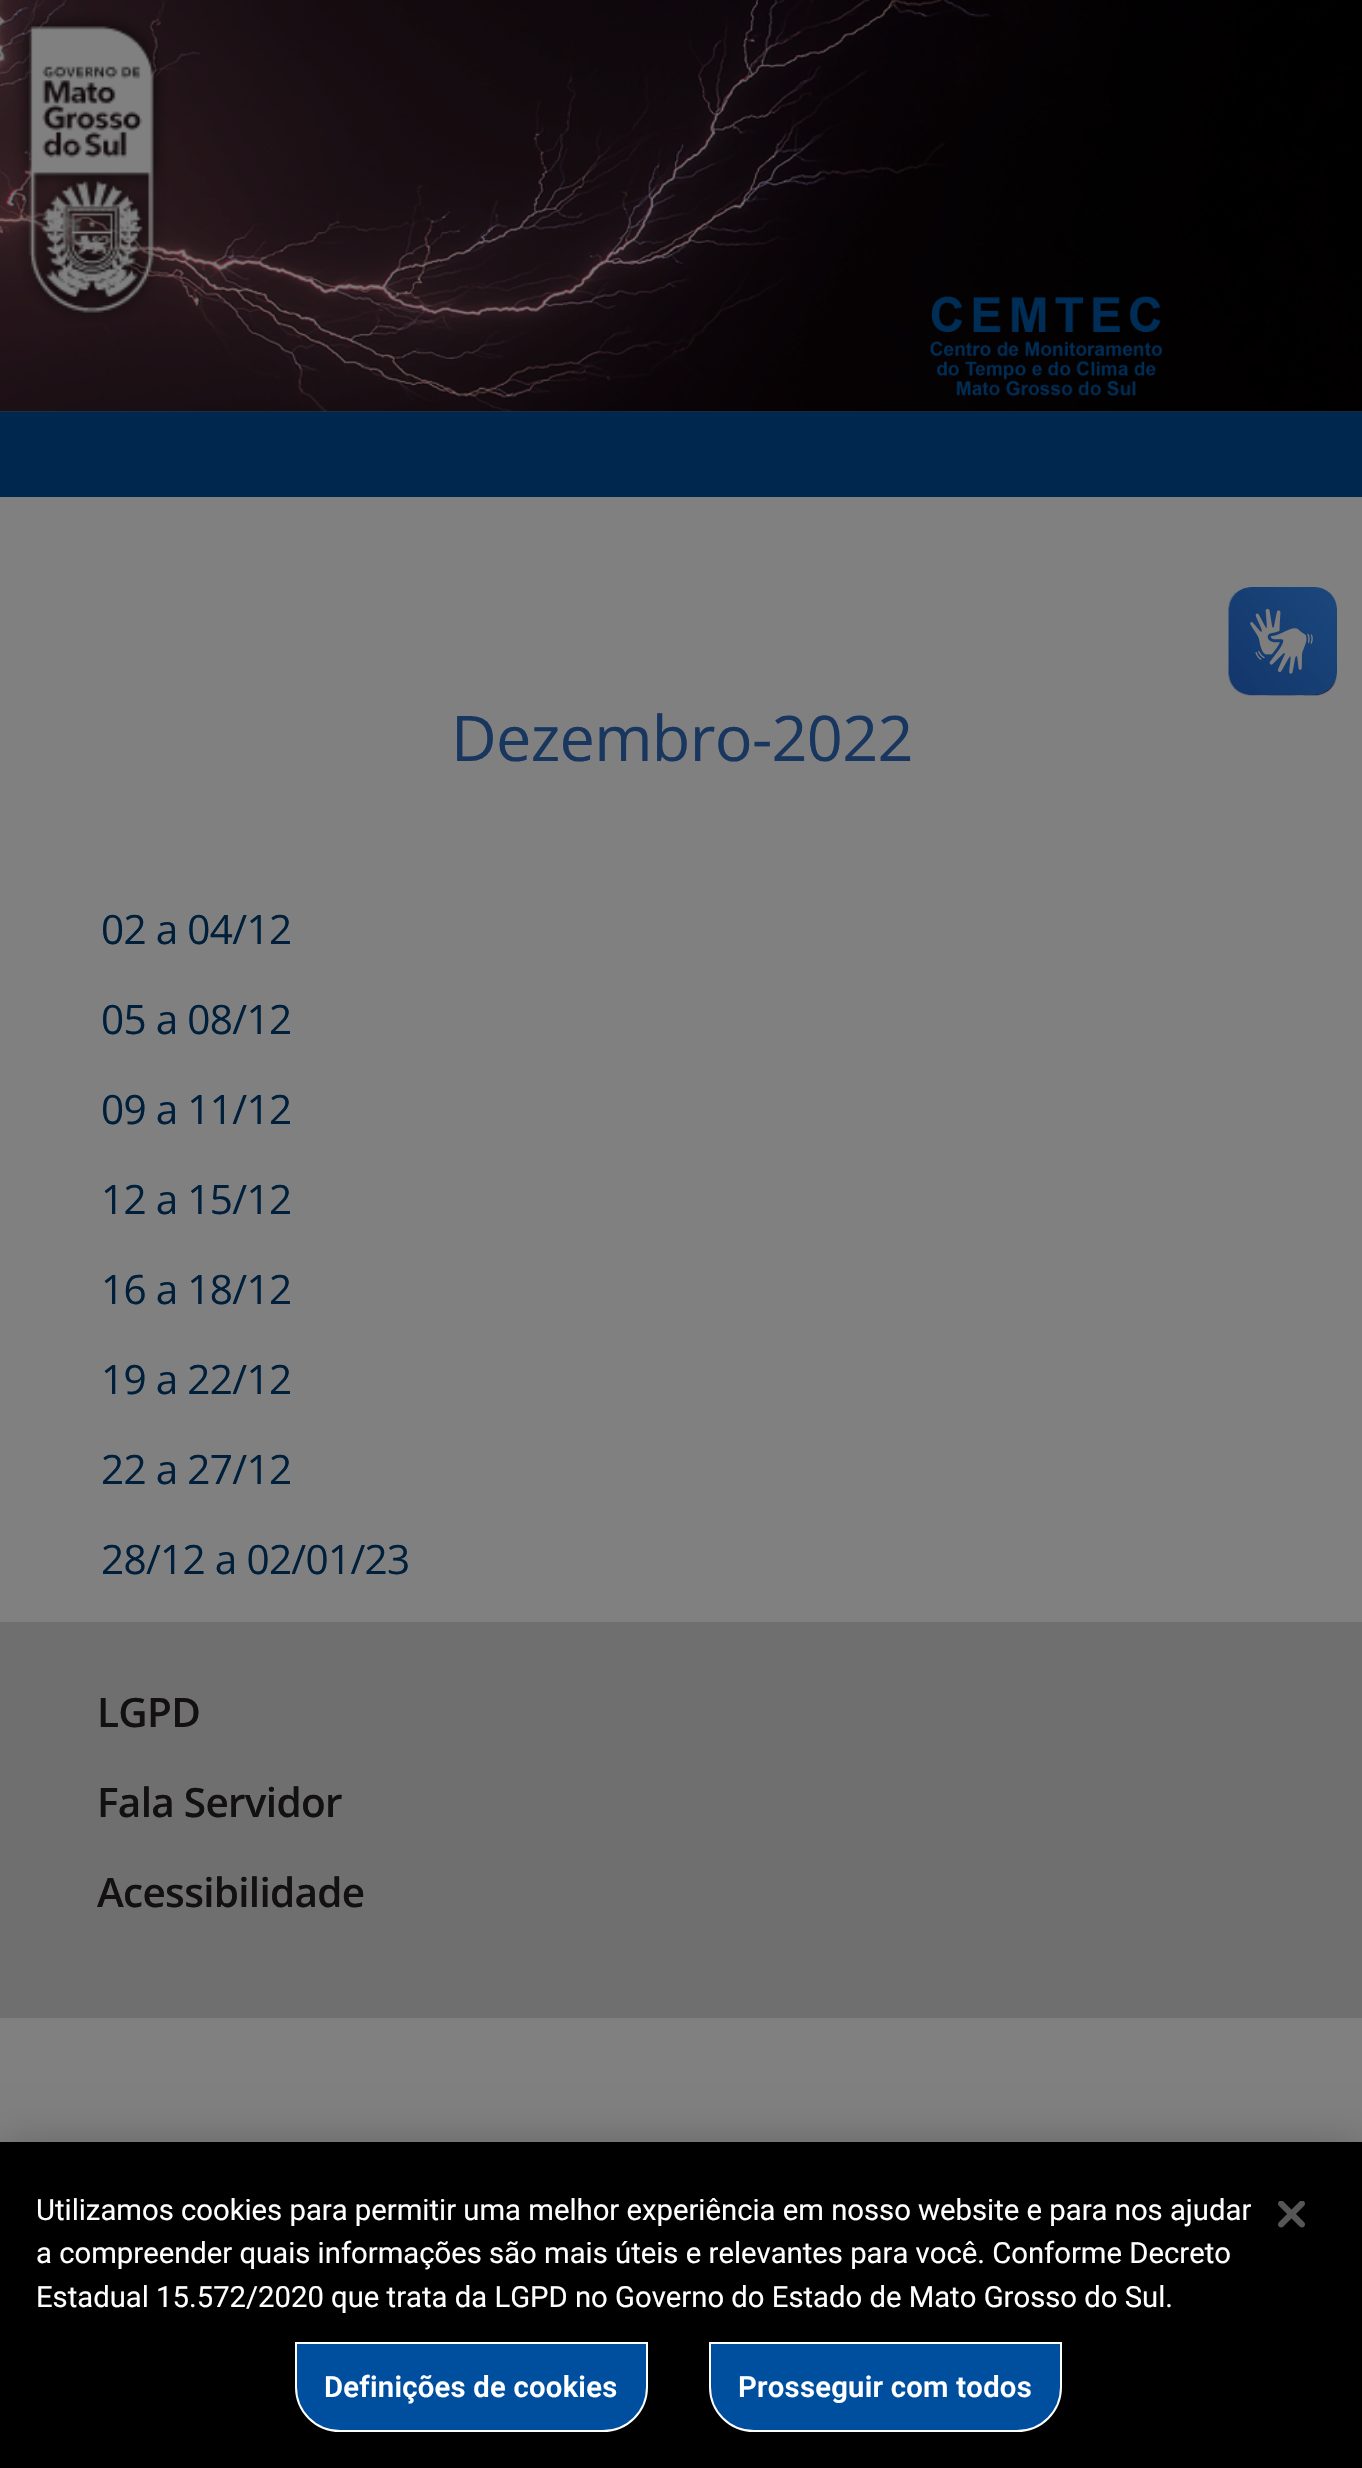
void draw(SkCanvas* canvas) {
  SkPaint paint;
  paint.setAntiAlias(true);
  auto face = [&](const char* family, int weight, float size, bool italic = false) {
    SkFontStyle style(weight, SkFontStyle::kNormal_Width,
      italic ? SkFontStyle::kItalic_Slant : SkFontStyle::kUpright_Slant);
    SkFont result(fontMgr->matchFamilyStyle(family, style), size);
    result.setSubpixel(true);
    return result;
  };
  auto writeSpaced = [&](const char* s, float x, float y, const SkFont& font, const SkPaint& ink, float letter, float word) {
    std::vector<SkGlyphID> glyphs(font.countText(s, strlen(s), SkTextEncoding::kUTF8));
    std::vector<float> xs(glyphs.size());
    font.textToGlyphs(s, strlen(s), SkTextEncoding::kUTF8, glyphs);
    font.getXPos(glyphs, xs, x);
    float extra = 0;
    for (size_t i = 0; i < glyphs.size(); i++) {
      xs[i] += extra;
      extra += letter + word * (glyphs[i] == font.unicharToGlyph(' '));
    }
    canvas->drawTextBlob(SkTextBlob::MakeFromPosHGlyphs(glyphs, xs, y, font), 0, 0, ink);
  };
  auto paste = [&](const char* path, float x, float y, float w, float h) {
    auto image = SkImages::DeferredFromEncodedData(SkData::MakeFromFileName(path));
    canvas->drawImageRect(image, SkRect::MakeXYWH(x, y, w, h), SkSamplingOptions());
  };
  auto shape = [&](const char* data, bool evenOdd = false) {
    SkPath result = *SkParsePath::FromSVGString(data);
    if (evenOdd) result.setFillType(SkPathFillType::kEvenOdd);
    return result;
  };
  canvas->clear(0xff808080);
  paint.setColor(0xff19365f);
  canvas->drawRect(SkRect::MakeXYWH(0, 411, 1362, 1), paint);
  paste("img/1.png", 0, 0, 1362, 412);
  paste("img/2.png", 13, 12, 156, 311);
  paste("img/3.png", 930, 296, 233, 100);
  paint.setColor(0xff00284f);
  canvas->drawRect(SkRect::MakeXYWH(0, 412, 1362, 85), paint);
  paste("img/4.png", 1228, 587, 109, 109);
  paste("img/5.png", 1229, 587, 108, 108);
  paint.setColor(0xff6f6f6f);
  canvas->drawRect(SkRect::MakeXYWH(0, 1622, 1362, 396), paint);
  paint.setColor(0x33000000);
  paint.setMaskFilter(SkMaskFilter::MakeBlur(kNormal_SkBlurStyle, 20));
  canvas->drawRect(SkRect::MakeXYWH(0, 2142, 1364, 326), paint);
  paint.setMaskFilter(nullptr);
  paint.setColor(0xff000000);
  canvas->drawRect(SkRect::MakeXYWH(0, 2142, 1362, 326), paint);
  paint.setColor(0xff004f9f);
  canvas->drawPath(shape("M296 2343H647V2387C647 2411.5 627.5 2431 603 2431H340C315.5 2431 296 2411.5 296 2387Z"), paint);
  paint.setStroke(true);
  paint.setStrokeWidth(2);
  paint.setColor(0xffffffff);
  canvas->drawPath(shape("M296 2343H647V2387C647 2411.5 627.5 2431 603 2431H340C315.5 2431 296 2411.5 296 2387Z"), paint);
  paint.setStroke(false);
  paint.setColor(0xff004f9f);
  canvas->drawPath(shape("M710 2343H1061V2387C1061 2411.5 1041.5 2431 1017 2431H754C729.5 2431 710 2411.5 710 2387Z"), paint);
  paint.setStroke(true);
  paint.setColor(0xffffffff);
  canvas->drawPath(shape("M710 2343H1061V2387C1061 2411.5 1041.5 2431 1017 2431H754C729.5 2431 710 2411.5 710 2387Z"), paint);
  paste("img/6.png", 1278, 2201, 27, 27);
  auto f0 = face("Open Sans", 400, 63);
  paint.setStroke(false);
  paint.setColor(0xff19365f);
  writeSpaced("Dezembro-2022", 451, 761, f0, paint, -0.7f, 0);
  auto f1 = face("Open Sans", 400, 40.5f);
  paint.setColor(0xff001f3b);
  {
    const struct { const char* s; float x, y; } items[] = {
      {"02 a 04/12", 101, 944},
      {"05 a 08/12", 101, 1034},
      {"09 a 11/12", 101, 1124},
      {"12 a 15/12", 101, 1214},
      {"16 a 18/12", 101, 1304},
      {"19 a 22/12", 101, 1394},
      {"22 a 27/12", 101, 1484},
      {"28/12 a 02/01/23", 101, 1574},
    };
    for (auto [s, x, y] : items) {
      writeSpaced(s, x, y, f1, paint, -0.7f, 0);
    }
  }
  auto f2 = face("Open Sans", 600, 40.5f);
  paint.setColor(0xff121010);
  {
    const struct { const char* s; float x, y; } items[] = {
      {"LGPD", 97, 1727},
      {"Fala Servidor", 97, 1817},
      {"Acessibilidade", 97, 1907},
    };
    for (auto [s, x, y] : items) {
      writeSpaced(s, x, y, f2, paint, -0.7f, 0);
    }
  }
  auto f3 = face("Roboto", 400, 29.25f);
  paint.setColor(0xffffffff);
  {
    const struct { const char* s; float x, y; } items[] = {
      {"Utilizamos cookies para permitir uma melhor experiência em nosso website e para nos ajudar", 36, 2220},
      {"a compreender quais informações são mais úteis e relevantes para você. Conforme Decreto", 36, 2263},
      {"Estadual 15.572/2020 que trata da LGPD no Governo do Estado de Mato Grosso do Sul.", 36, 2307},
    };
    for (auto [s, x, y] : items) {
      canvas->drawString(s, x, y, f3, paint);
    }
  }
  auto f4 = face("Roboto", 600, 29.25f);
  writeSpaced("Definições de cookies", 324, 2397, f4, paint, 0.25f, 0);
  writeSpaced("Prosseguir com todos", 738, 2397, f4, paint, 0.25f, 0);
}
